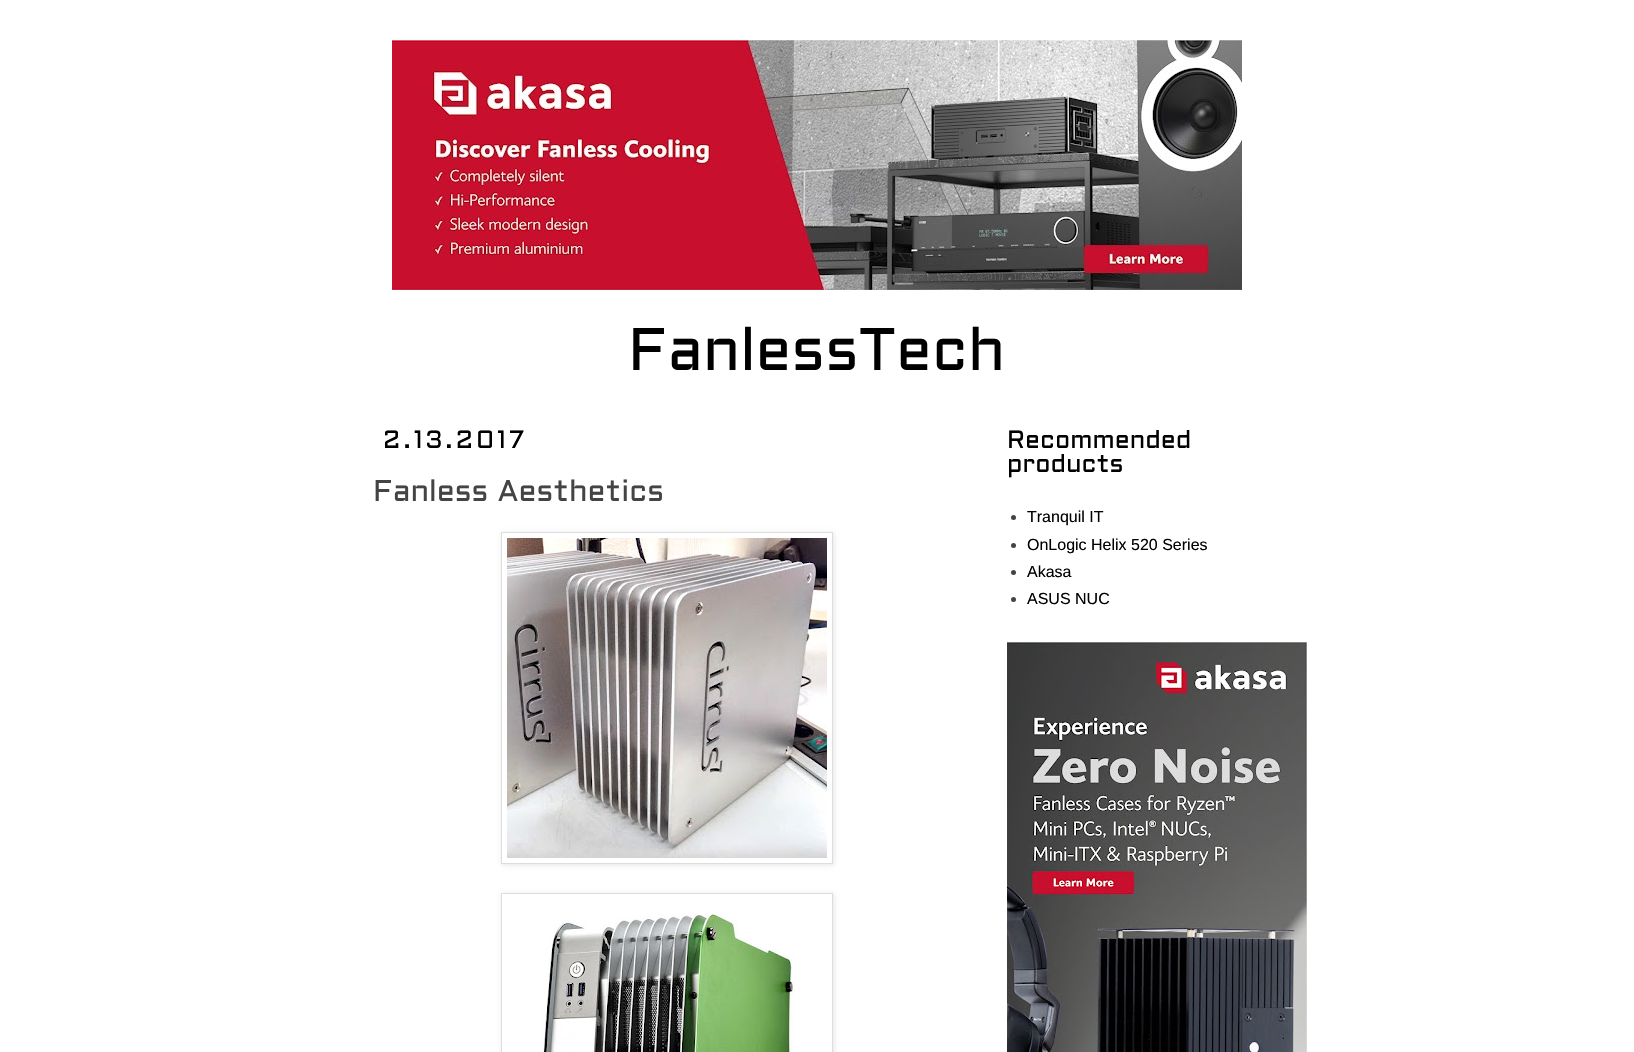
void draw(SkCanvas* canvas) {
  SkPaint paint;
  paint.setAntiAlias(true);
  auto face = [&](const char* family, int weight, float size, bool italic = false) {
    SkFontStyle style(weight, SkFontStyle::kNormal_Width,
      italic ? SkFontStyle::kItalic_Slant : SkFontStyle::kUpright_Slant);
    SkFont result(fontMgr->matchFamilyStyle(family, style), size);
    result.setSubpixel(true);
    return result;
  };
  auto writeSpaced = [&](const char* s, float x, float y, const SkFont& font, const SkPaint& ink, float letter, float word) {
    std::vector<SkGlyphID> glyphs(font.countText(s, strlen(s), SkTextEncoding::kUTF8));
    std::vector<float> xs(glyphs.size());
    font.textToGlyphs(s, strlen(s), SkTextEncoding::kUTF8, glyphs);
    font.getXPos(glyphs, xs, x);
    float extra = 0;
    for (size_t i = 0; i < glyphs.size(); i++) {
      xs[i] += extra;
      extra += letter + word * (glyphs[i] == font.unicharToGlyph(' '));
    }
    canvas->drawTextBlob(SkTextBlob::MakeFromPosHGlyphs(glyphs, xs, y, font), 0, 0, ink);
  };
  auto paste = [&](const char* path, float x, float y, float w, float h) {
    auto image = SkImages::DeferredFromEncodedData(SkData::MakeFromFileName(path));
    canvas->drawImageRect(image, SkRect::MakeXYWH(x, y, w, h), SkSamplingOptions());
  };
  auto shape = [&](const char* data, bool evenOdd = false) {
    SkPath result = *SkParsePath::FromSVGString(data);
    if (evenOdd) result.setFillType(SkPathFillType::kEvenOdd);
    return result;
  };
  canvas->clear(0xffffffff);
  paste("img/1.png", 392, 40, 850, 250);
  canvas->save();
  canvas->clipPath(shape("M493 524H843V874H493ZM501 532H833V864H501Z", true), true);
  paint.setColor(0x1a000000);
  paint.setMaskFilter(SkMaskFilter::MakeBlur(kNormal_SkBlurStyle, 2.5f));
  canvas->drawRect(SkRect::MakeXYWH(502, 533, 332, 332), paint);
  paint.setMaskFilter(nullptr);
  canvas->restore();
  paint.setStroke(true);
  paint.setStrokeWidth(1);
  paint.setColor(0xffdddddd);
  canvas->drawRect(SkRect::MakeXYWH(501.5f, 532.5f, 331, 331), paint);
  paste("img/2.png", 507, 538, 320, 320);
  canvas->save();
  canvas->clipPath(shape("M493 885H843V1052H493ZM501 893H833V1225H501Z", true), true);
  paint.setStroke(false);
  paint.setColor(0x1a000000);
  paint.setMaskFilter(SkMaskFilter::MakeBlur(kNormal_SkBlurStyle, 2.5f));
  canvas->drawRect(SkRect::MakeXYWH(502, 894, 332, 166), paint);
  paint.setMaskFilter(nullptr);
  canvas->restore();
  paint.setStroke(true);
  paint.setColor(0xffdddddd);
  canvas->drawRect(SkRect::MakeXYWH(501.5f, 893.5f, 331, 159), paint);
  paste("img/3.png", 541, 912, 254, 140);
  paint.setStroke(false);
  paint.setColor(0xff444444);
  canvas->drawCircle(1013.5f, 517.5f, 2.5f, paint);
  canvas->drawCircle(1013.5f, 545.5f, 2.5f, paint);
  canvas->drawCircle(1013.5f, 572.5f, 2.5f, paint);
  canvas->drawCircle(1013.5f, 599.5f, 2.5f, paint);
  paste("img/4.png", 1007, 642, 300, 410);
  auto f0 = face("Aldrich", 400, 60);
  paint.setColor(0xff000000);
  canvas->drawString("FanlessTech", 628, 370, f0, paint);
  auto f1 = face("Aldrich", 400, 25);
  writeSpaced("2.13.2017", 383, 448, f1, paint, 3, 0);
  auto f2 = face("Aldrich", 400, 30);
  paint.setColor(0xff444444);
  canvas->drawString("Fanless Aesthetics", 373, 501, f2, paint);
  paint.setColor(0xff000000);
  canvas->drawString("Recommended", 1007, 448, f1, paint);
  canvas->drawString("products", 1007, 472, f1, paint);
  auto f3 = face("Liberation Sans", 400, 16);
  {
    const struct { const char* s; float x, y; } items[] = {
      {"Tranquil IT", 1027, 522},
      {"OnLogic Helix 520 Series", 1027, 550},
      {"Akasa", 1027, 577},
      {"ASUS NUC", 1027, 604},
    };
    for (auto [s, x, y] : items) {
      canvas->drawString(s, x, y, f3, paint);
    }
  }
}
